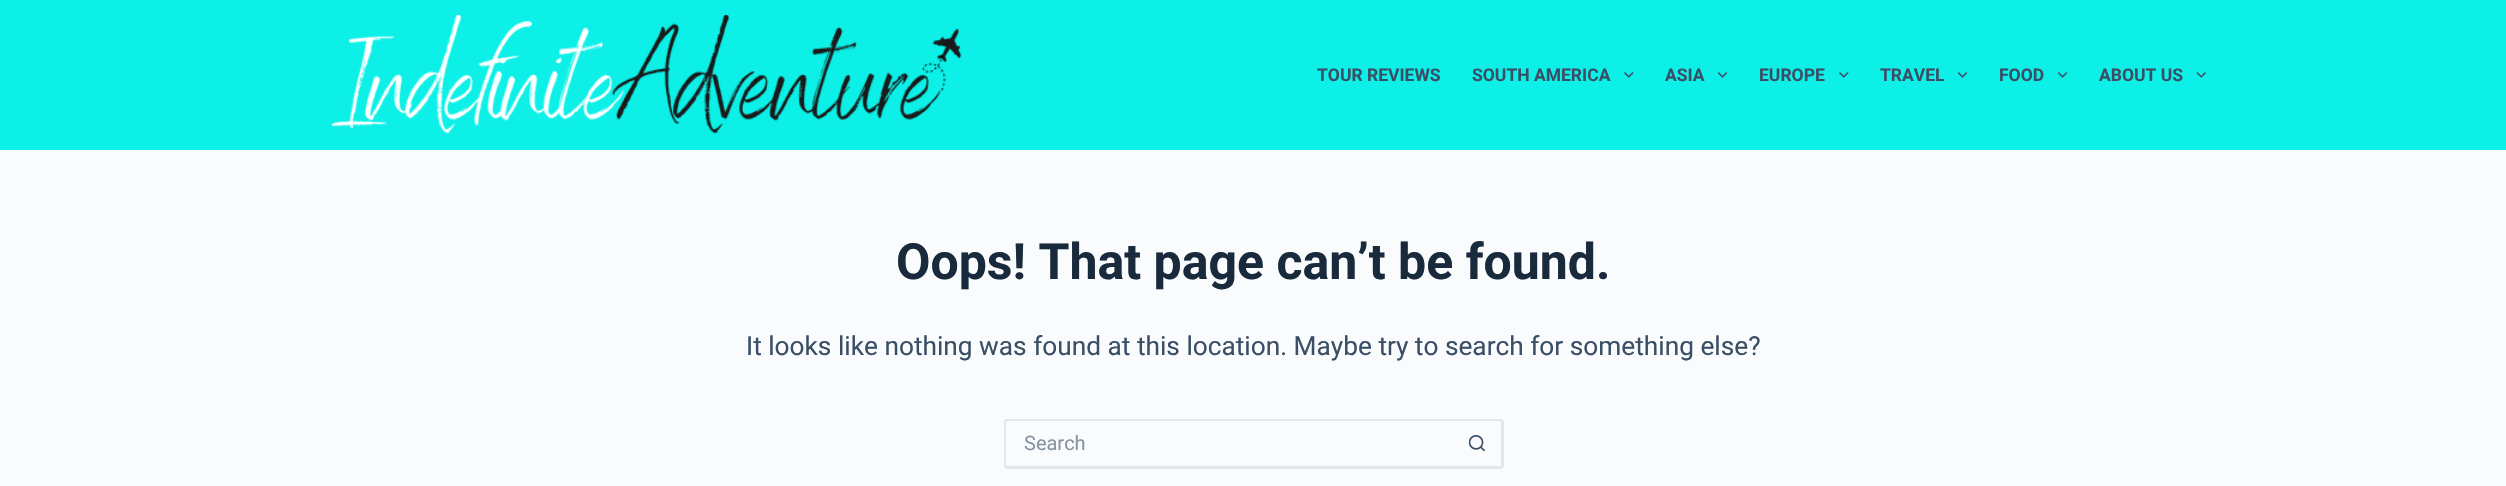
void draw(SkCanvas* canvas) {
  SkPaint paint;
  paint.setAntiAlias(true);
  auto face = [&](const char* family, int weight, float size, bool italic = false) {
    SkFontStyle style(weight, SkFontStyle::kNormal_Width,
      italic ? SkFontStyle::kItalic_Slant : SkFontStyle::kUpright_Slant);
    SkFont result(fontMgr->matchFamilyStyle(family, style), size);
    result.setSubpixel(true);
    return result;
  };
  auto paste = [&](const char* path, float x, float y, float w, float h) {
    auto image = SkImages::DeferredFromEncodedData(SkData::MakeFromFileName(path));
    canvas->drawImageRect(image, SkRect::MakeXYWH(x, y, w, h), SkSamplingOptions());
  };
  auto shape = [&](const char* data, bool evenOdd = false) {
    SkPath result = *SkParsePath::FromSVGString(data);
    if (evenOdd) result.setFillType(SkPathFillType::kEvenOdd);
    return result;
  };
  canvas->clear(0xfffafbfc);
  paint.setColor(0xff0cf0e7);
  canvas->drawRect(SkRect::MakeXYWH(0, 0, 2506, 150), paint);
  paste("img/1.png", 331, 15, 631, 119);
  paste("img/2.png", 1624, 72, 10, 6);
  paste("img/3.png", 1718, 72, 10, 6);
  paste("img/2.png", 1839, 72, 10, 6);
  paste("img/3.png", 1958, 72, 10, 6);
  paste("img/3.png", 2058, 72, 10, 6);
  paste("img/4.png", 2196, 72, 10, 6);
  paint.setColor(0xffe1e8ed);
  canvas->drawPath(shape("M1008 419H1454V469H1008C1005 469 1004 467 1004 465V422C1004 420 1005 419 1008 419ZM1008 421H1454V466H1007L1006 465V422C1006 422 1007 421 1008 421Z", true), paint);
  canvas->drawPath(shape("M1454 419H1500C1502 419 1504 420 1504 422V465C1504 467 1502 469 1500 469H1454ZM1454 421H1500C1501 421 1501 422 1501 422V465C1501 466 1501 466 1500 466H1454Z", true), paint);
  paste("img/5.png", 1469, 435, 16, 16);
  auto f0 = face("Roboto", 700, 17.5f);
  paint.setColor(0xff3a4f66);
  {
    const struct { const char* s; float x, y; } items[] = {
      {"TOUR REVIEWS", 1317, 81},
      {"SOUTH AMERICA", 1472, 81},
      {"ASIA", 1665, 81},
      {"EUROPE", 1759, 81},
      {"TRAVEL", 1880, 81},
      {"FOOD", 1999, 81},
      {"ABOUT US", 2099, 81},
    };
    for (auto [s, x, y] : items) {
      canvas->drawString(s, x, y, f0, paint);
    }
  }
  auto f1 = face("Roboto", 700, 50);
  paint.setColor(0xff192a3d);
  canvas->drawString("Oops! That page can’t be found.", 896, 279, f1, paint);
  auto f2 = face("Roboto", 400, 26.25f);
  paint.setColor(0xff3a4f66);
  canvas->drawString("It looks like nothing was found at this location. Maybe try to search for something else?", 746, 355, f2, paint);
  auto f3 = face("Roboto", 400, 20);
  paint.setColor(0xff8794a2);
  canvas->drawString("Search", 1024, 450, f3, paint);
}
